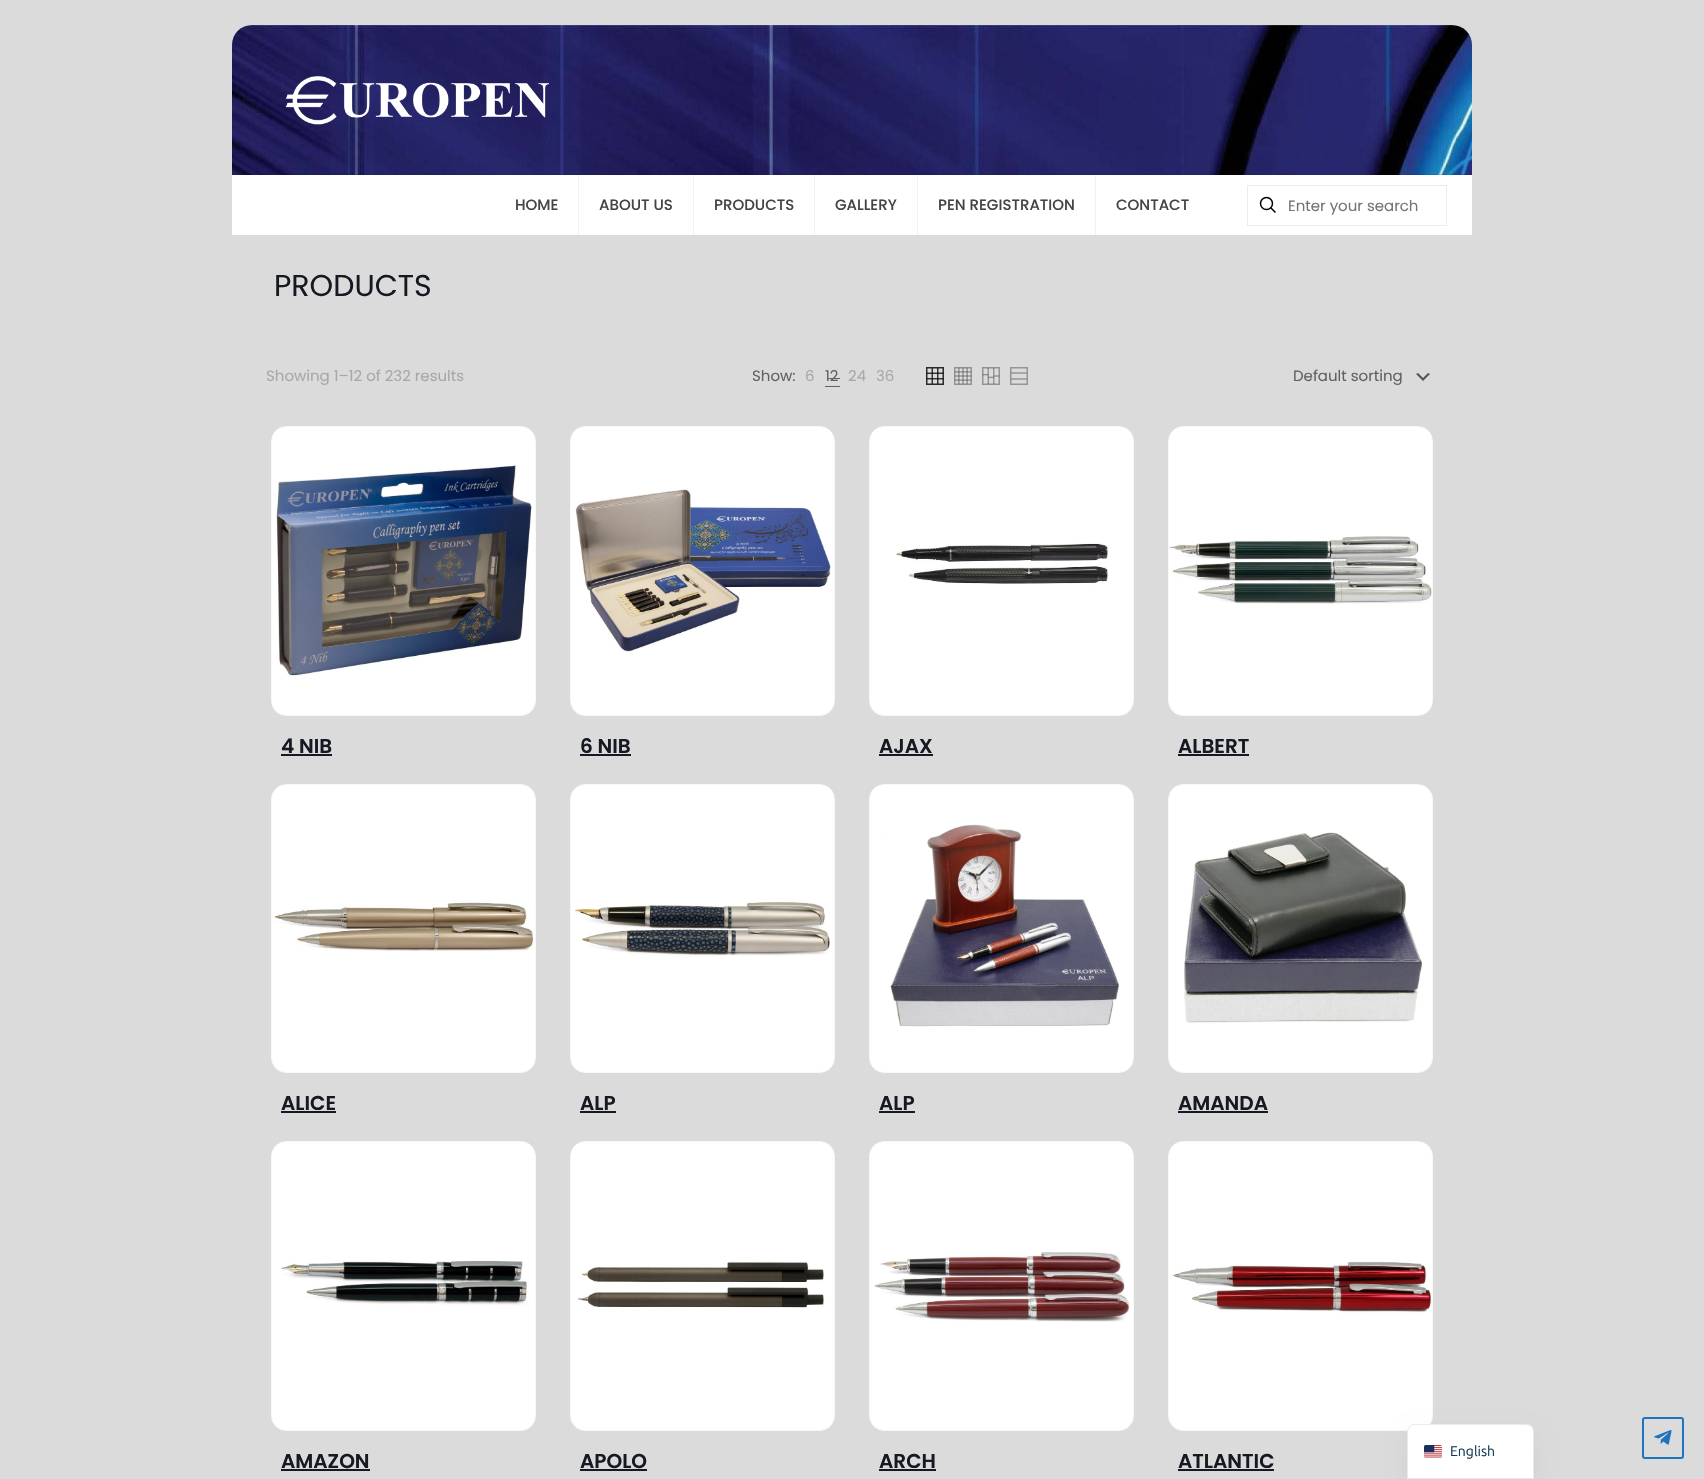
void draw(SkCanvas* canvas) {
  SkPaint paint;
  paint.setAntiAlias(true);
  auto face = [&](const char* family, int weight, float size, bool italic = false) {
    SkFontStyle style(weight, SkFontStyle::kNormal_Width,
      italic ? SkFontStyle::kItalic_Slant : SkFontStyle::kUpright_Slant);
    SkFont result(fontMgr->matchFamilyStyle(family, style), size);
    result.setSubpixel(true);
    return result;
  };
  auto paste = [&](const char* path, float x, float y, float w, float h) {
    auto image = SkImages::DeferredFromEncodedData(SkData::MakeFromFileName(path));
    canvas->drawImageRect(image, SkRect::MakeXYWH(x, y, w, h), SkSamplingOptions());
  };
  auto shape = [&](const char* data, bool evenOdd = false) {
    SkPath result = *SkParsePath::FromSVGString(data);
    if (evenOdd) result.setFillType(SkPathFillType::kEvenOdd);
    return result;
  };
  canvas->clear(0xffdbdbdb);
  paste("img/1.png", 232, 25, 1240, 150);
  paint.setColor(0x14000000);
  canvas->drawRect(SkRect::MakeXYWH(232, 174, 1240, 1), paint);
  paste("img/2.png", 285, 76, 264, 49);
  {
    const struct { float x, y, w, h; SkColor color; } items[] = {
      {232, 175, 1240, 60, 0xffffffff},
      {578, 175, 1, 60, 0xfff2f2f2},
      {693, 175, 1, 60, 0xfff2f2f2},
      {814, 175, 1, 60, 0xfff2f2f2},
      {917, 175, 1, 60, 0xfff2f2f2},
      {1095, 175, 1, 60, 0xfff2f2f2},
    };
    for (auto [x, y, w, h, color] : items) {
      paint.setColor(color);
      canvas->drawRect(SkRect::MakeXYWH(x, y, w, h), paint);
    }
  }
  paint.setStroke(true);
  paint.setStrokeWidth(1);
  paint.setColor(0xffebebeb);
  canvas->drawRect(SkRect::MakeXYWH(1247.5f, 185.5f, 199, 40), paint);
  paint.setStrokeWidth(1.5f);
  paint.setColor(0xff000000);
  canvas->drawCircle(1266.5f, 203.5f, 6, paint);
  canvas->drawPath(shape("M1270.5 207.5L1275.5 212.5"), paint);
  paint.setStroke(false);
  paint.setColor(0xff626262);
  canvas->drawRect(SkRect::MakeXYWH(828, 378, 12, 1), paint);
  canvas->drawRect(SkRect::MakeXYWH(825, 386, 15, 1), paint);
  paste("img/3.png", 926, 367, 18, 18);
  paste("img/4.png", 954, 367, 18, 18);
  paste("img/5.png", 982, 367, 18, 18);
  paint.setStroke(true);
  paint.setColor(0xff959595);
  canvas->drawRect(SkRect::MakeXYWH(1010.75f, 367.75f, 16.5f, 16.5f), paint);
  paint.setStrokeWidth(1.4f);
  paint.setColor(0xcc838383);
  canvas->drawPath(shape("M1011 373H1027M1011 379H1027"), paint);
  paste("img/6.png", 1416, 373, 14, 8);
  paint.setStrokeWidth(1);
  paint.setColor(0xfff8f8f8);
  canvas->drawRoundRect(SkRect::MakeXYWH(271.5f, 426.5f, 264, 289), 14.5f, 14.5f, paint);
  paste("img/7.png", 272, 427, 263, 288);
  paint.setStroke(false);
  paint.setColor(0xff161922);
  canvas->drawRect(SkRect::MakeXYWH(281, 754, 51, 2), paint);
  paint.setStroke(true);
  paint.setColor(0xfff8f8f8);
  canvas->drawRoundRect(SkRect::MakeXYWH(570.5f, 426.5f, 264, 289), 14.5f, 14.5f, paint);
  paste("img/8.png", 571, 427, 263, 288);
  paint.setStroke(false);
  paint.setColor(0xff161922);
  canvas->drawRect(SkRect::MakeXYWH(580, 754, 51, 2), paint);
  paint.setStroke(true);
  paint.setColor(0xfff8f8f8);
  canvas->drawRoundRect(SkRect::MakeXYWH(869.5f, 426.5f, 264, 289), 14.5f, 14.5f, paint);
  paste("img/9.png", 870, 427, 263, 288);
  paint.setStroke(false);
  paint.setColor(0xff161922);
  canvas->drawRect(SkRect::MakeXYWH(879, 754, 54, 2), paint);
  paint.setStroke(true);
  paint.setColor(0xfff8f8f8);
  canvas->drawRoundRect(SkRect::MakeXYWH(1168.5f, 426.5f, 264, 289), 14.5f, 14.5f, paint);
  paste("img/10.png", 1169, 427, 263, 288);
  paint.setStroke(false);
  paint.setColor(0xff161922);
  canvas->drawRect(SkRect::MakeXYWH(1178, 754, 71, 2), paint);
  paint.setStroke(true);
  paint.setColor(0xfff8f8f8);
  canvas->drawRoundRect(SkRect::MakeXYWH(271.5f, 784.5f, 264, 288), 14.5f, 14.5f, paint);
  paste("img/11.png", 272, 785, 263, 287);
  paint.setStroke(false);
  paint.setColor(0xff161922);
  canvas->drawRect(SkRect::MakeXYWH(281, 1111, 55, 2), paint);
  paint.setStroke(true);
  paint.setColor(0xfff8f8f8);
  canvas->drawRoundRect(SkRect::MakeXYWH(570.5f, 784.5f, 264, 288), 14.5f, 14.5f, paint);
  paste("img/12.png", 571, 785, 263, 287);
  paint.setStroke(false);
  paint.setColor(0xff161922);
  canvas->drawRect(SkRect::MakeXYWH(580, 1111, 36, 2), paint);
  paint.setStroke(true);
  paint.setColor(0xfff8f8f8);
  canvas->drawRoundRect(SkRect::MakeXYWH(869.5f, 784.5f, 264, 288), 14.5f, 14.5f, paint);
  paste("img/13.png", 870, 785, 263, 287);
  paint.setStroke(false);
  paint.setColor(0xff161922);
  canvas->drawRect(SkRect::MakeXYWH(879, 1111, 36, 2), paint);
  paint.setStroke(true);
  paint.setColor(0xfff8f8f8);
  canvas->drawRoundRect(SkRect::MakeXYWH(1168.5f, 784.5f, 264, 288), 14.5f, 14.5f, paint);
  paste("img/14.png", 1169, 785, 263, 287);
  paint.setStroke(false);
  paint.setColor(0xff161922);
  canvas->drawRect(SkRect::MakeXYWH(1178, 1111, 90, 2), paint);
  paint.setStroke(true);
  paint.setColor(0xfff8f8f8);
  canvas->drawRoundRect(SkRect::MakeXYWH(271.5f, 1141.5f, 264, 289), 14.5f, 14.5f, paint);
  paste("img/15.png", 272, 1142, 263, 288);
  paint.setStroke(false);
  paint.setColor(0xff161922);
  canvas->drawRect(SkRect::MakeXYWH(281, 1469, 89, 2), paint);
  paint.setStroke(true);
  paint.setColor(0xfff8f8f8);
  canvas->drawRoundRect(SkRect::MakeXYWH(570.5f, 1141.5f, 264, 289), 14.5f, 14.5f, paint);
  paste("img/16.png", 571, 1142, 263, 288);
  paint.setStroke(false);
  paint.setColor(0xff161922);
  canvas->drawRect(SkRect::MakeXYWH(580, 1469, 67, 2), paint);
  paint.setStroke(true);
  paint.setColor(0xfff8f8f8);
  canvas->drawRoundRect(SkRect::MakeXYWH(869.5f, 1141.5f, 264, 289), 14.5f, 14.5f, paint);
  paste("img/17.png", 870, 1142, 263, 288);
  paint.setStroke(false);
  paint.setColor(0xff161922);
  canvas->drawRect(SkRect::MakeXYWH(879, 1469, 57, 2), paint);
  paint.setStroke(true);
  paint.setColor(0xfff8f8f8);
  canvas->drawRoundRect(SkRect::MakeXYWH(1168.5f, 1141.5f, 264, 289), 14.5f, 14.5f, paint);
  paste("img/18.png", 1169, 1142, 263, 288);
  paint.setStroke(false);
  paint.setColor(0xff161922);
  canvas->drawRect(SkRect::MakeXYWH(1178, 1469, 96, 2), paint);
  paint.setColor(0x0d000000);
  paint.setMaskFilter(SkMaskFilter::MakeBlur(kNormal_SkBlurStyle, 10));
  canvas->drawRoundRect(SkRect::MakeXYWH(1407, 1434, 127, 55), 8, 8, paint);
  paint.setMaskFilter(nullptr);
  paint.setColor(0xffffffff);
  canvas->drawPath(shape("M1415 1424H1526C1530.5 1424 1534 1427.5 1534 1432V1479H1407V1432C1407 1427.5 1410.5 1424 1415 1424Z"), paint);
  paint.setStroke(true);
  paint.setColor(0x1a143852);
  canvas->drawPath(shape("M1415 1424.5H1526C1530 1424.5 1533.5 1428 1533.5 1432V1478.5H1407.5V1432C1407.5 1428 1411 1424.5 1415 1424.5Z"), paint);
  paste("img/19.png", 1424, 1445, 18, 13);
  paint.setStrokeWidth(2);
  paint.setColor(0xff1e73be);
  canvas->drawRoundRect(SkRect::MakeXYWH(1643, 1418, 40, 40), 2, 2, paint);
  paste("img/20.png", 1654, 1430, 18, 15);
  auto f0 = face("Poppins", 500, 15);
  paint.setStroke(false);
  paint.setColor(0xff444444);
  {
    const struct { const char* s; float x, y; } items[] = {
      {"HOME", 515, 210},
      {"ABOUT US", 599, 210},
      {"PRODUCTS", 714, 210},
      {"GALLERY", 835, 210},
      {"PEN REGISTRATION", 938, 210},
      {"CONTACT", 1116, 210},
    };
    for (auto [s, x, y] : items) {
      canvas->drawString(s, x, y, f0, paint);
    }
  }
  auto f1 = face("Poppins", 400, 15);
  paint.setColor(0xff757575);
  canvas->drawString("Enter your search", 1288, 211, f1, paint);
  auto f2 = face("Poppins", 400, 30);
  paint.setColor(0xff161922);
  canvas->drawString("PRODUCTS", 274, 296, f2, paint);
  paint.setColor(0xffa8a8a8);
  canvas->drawString("Showing 1–12 of 232 results", 266, 381, f1, paint);
  paint.setColor(0xff626262);
  canvas->drawString("Show:", 752, 381, f1, paint);
  paint.setColor(0xffa8a8a8);
  canvas->drawString("6", 805, 381, f1, paint);
  paint.setColor(0xff626262);
  canvas->drawString("12", 825, 381, f1, paint);
  paint.setColor(0xffa8a8a8);
  canvas->drawString("24", 848, 381, f1, paint);
  canvas->drawString("36", 876, 381, f1, paint);
  paint.setColor(0xff626262);
  canvas->drawString("Default sorting", 1293, 381, f1, paint);
  auto f3 = face("Poppins", 600, 20);
  paint.setColor(0xff161922);
  {
    const struct { const char* s; float x, y; } items[] = {
      {"4 NIB", 281, 753},
      {"6 NIB", 580, 753},
      {"AJAX", 879, 753},
      {"ALBERT", 1178, 753},
      {"ALICE", 281, 1110},
      {"ALP", 580, 1110},
      {"ALP", 879, 1110},
      {"AMANDA", 1178, 1110},
      {"AMAZON", 281, 1468},
      {"APOLO", 580, 1468},
      {"ARCH", 879, 1468},
      {"ATLANTIC", 1178, 1468},
    };
    for (auto [s, x, y] : items) {
      canvas->drawString(s, x, y, f3, paint);
    }
  }
  auto f4 = face("Ubuntu", 400, 14);
  paint.setColor(0xff143852);
  canvas->drawString("English", 1450, 1456, f4, paint);
}
